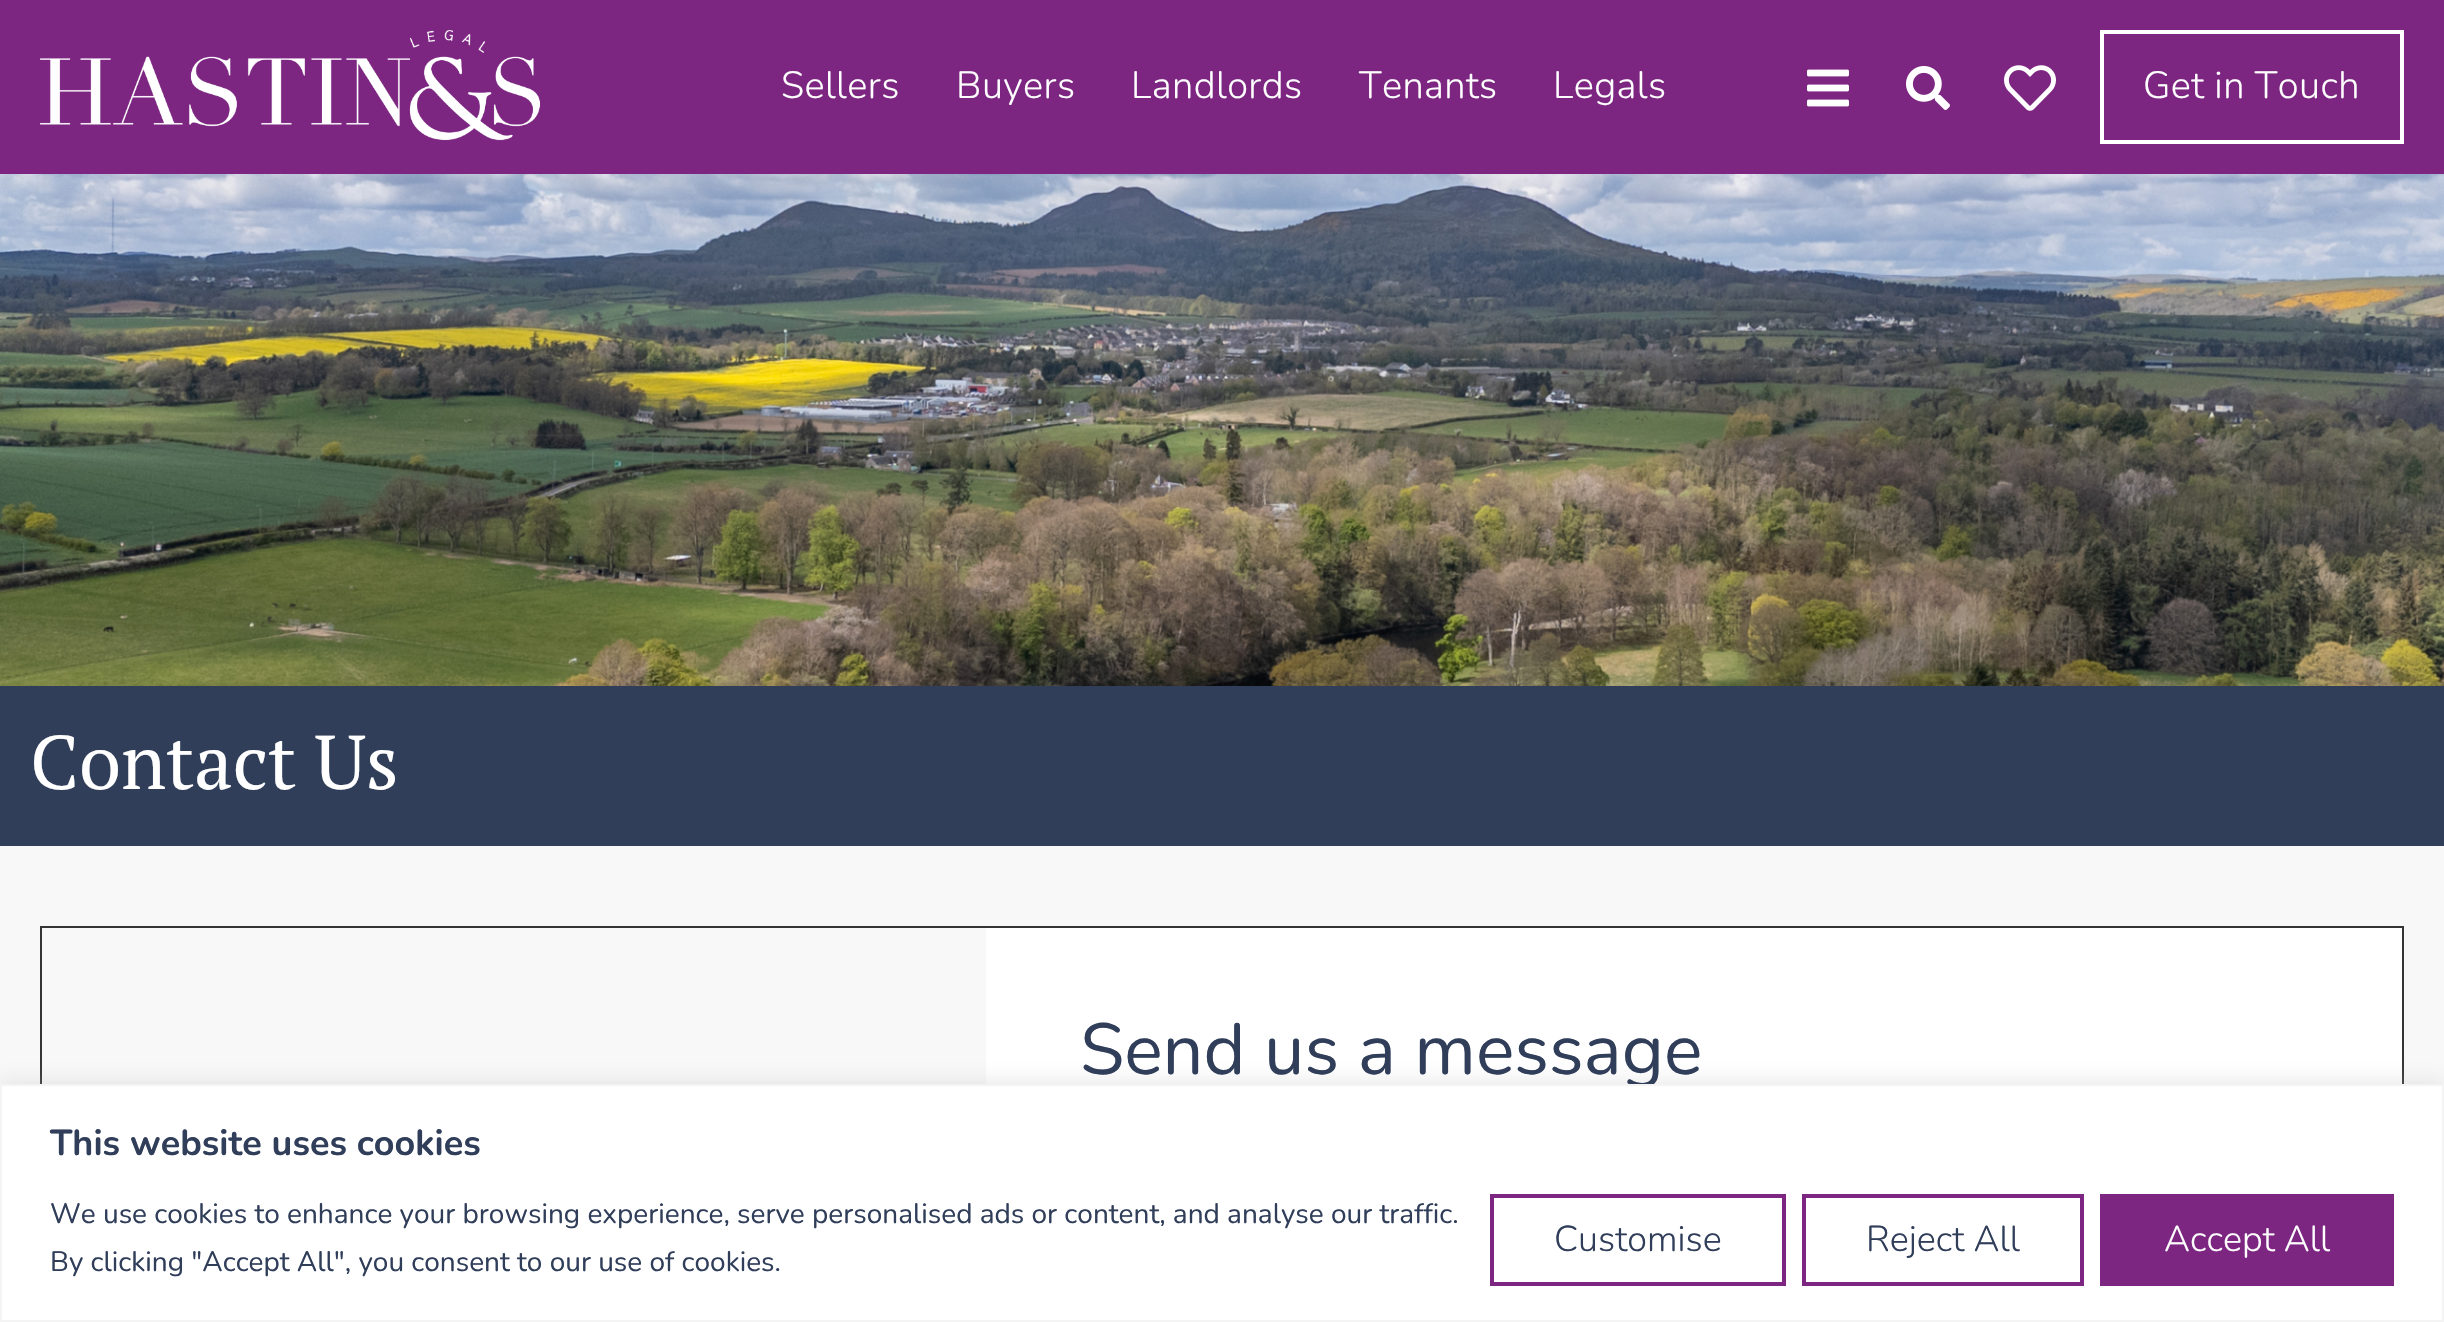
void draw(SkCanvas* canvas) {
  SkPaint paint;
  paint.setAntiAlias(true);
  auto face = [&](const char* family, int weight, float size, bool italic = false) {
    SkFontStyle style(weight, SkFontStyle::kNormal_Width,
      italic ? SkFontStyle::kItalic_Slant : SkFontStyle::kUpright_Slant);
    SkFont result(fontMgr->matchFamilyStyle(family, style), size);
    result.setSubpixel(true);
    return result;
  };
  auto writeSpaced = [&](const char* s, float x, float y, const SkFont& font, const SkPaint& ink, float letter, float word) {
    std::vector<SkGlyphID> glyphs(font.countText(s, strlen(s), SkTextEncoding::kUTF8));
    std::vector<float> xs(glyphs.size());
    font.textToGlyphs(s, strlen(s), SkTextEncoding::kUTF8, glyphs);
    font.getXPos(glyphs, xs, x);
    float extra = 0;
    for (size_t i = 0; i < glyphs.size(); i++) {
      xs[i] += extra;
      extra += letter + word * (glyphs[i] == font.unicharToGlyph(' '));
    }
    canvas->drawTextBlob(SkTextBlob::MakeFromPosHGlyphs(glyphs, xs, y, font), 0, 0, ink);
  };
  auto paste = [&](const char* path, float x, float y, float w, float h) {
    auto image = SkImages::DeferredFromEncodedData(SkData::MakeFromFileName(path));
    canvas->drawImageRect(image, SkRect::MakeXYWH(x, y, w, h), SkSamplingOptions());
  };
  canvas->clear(0xfff8f8f8);
  paint.setColor(0xff7c2682);
  canvas->drawRect(SkRect::MakeXYWH(0, 0, 2444, 174), paint);
  paste("img/1.png", 40, 30, 500, 111);
  paste("img/2.png", 1807, 69, 42, 38);
  paste("img/3.png", 1906, 66, 44, 44);
  paste("img/4.png", 2004, 65, 52, 46);
  paint.setStroke(true);
  paint.setStrokeWidth(4);
  paint.setColor(0xffffffff);
  canvas->drawRect(SkRect::MakeXYWH(2102, 32, 300, 110), paint);
  paste("img/5.png", 0, 174, 2444, 512);
  paint.setStroke(false);
  paint.setColor(0xff303e5a);
  canvas->drawRect(SkRect::MakeXYWH(0, 686, 2444, 160), paint);
  paint.setColor(0xffffffff);
  canvas->drawRect(SkRect::MakeXYWH(986, 928, 1416, 156), paint);
  paint.setStroke(true);
  paint.setStrokeWidth(2);
  paint.setColor(0xff353535);
  canvas->drawRect(SkRect::MakeXYWH(41, 927, 2362, 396), paint);
  paint.setStroke(false);
  paint.setColor(0x4dacabab);
  paint.setMaskFilter(SkMaskFilter::MakeBlur(kNormal_SkBlurStyle, 10));
  canvas->drawRect(SkRect::MakeXYWH(0, 1082, 2444, 238), paint);
  paint.setMaskFilter(nullptr);
  auto f0 = face("Nunito", 300, 38);
  paint.setColor(0xffffffff);
  {
    const struct { const char* s; float x, y; } items[] = {
      {"Sellers", 781, 98},
      {"Buyers", 956, 98},
      {"Landlords", 1131, 98},
      {"Tenants", 1359, 98},
      {"Legals", 1553, 98},
      {"Get in Touch", 2143, 98},
    };
    for (auto [s, x, y] : items) {
      writeSpaced(s, x, y, f0, paint, 0.4f, 0);
    }
  }
  auto f1 = face("PT Serif", 400, 76);
  canvas->drawString("Contact Us", 30, 789, f1, paint);
  auto f2 = face("Nunito", 400, 72);
  paint.setColor(0xff303e5a);
  canvas->drawString("Send us a message", 1080, 1074, f2, paint);
  paint.setColor(0xffffffff);
  canvas->drawRect(SkRect::MakeXYWH(1, 1085, 2442, 236), paint);
  paint.setStroke(true);
  paint.setColor(0xfff4f4f4);
  canvas->drawRect(SkRect::MakeXYWH(1, 1085, 2442, 236), paint);
  auto f3 = face("Nunito", 700, 36);
  paint.setStroke(false);
  paint.setColor(0xff303e5a);
  canvas->drawString("This website uses cookies", 50, 1155, f3, paint);
  auto f4 = face("Nunito", 400, 28);
  canvas->drawString("We use cookies to enhance your browsing experience, serve personalised ads or content, and analyse our traffic.", 50, 1223, f4, paint);
  canvas->drawString("By clicking \"Accept All\", you consent to our use of cookies.", 50, 1271, f4, paint);
  paint.setStroke(true);
  paint.setStrokeWidth(4);
  paint.setColor(0xff7c2682);
  canvas->drawRect(SkRect::MakeXYWH(1492, 1196, 292, 88), paint);
  auto f5 = face("Nunito", 300, 36);
  paint.setStroke(false);
  paint.setColor(0xff303e5a);
  canvas->drawString("Customise", 1554, 1251, f5, paint);
  paint.setStroke(true);
  paint.setColor(0xff7c2682);
  canvas->drawRect(SkRect::MakeXYWH(1804, 1196, 278, 88), paint);
  paint.setStroke(false);
  paint.setColor(0xff303e5a);
  canvas->drawString("Reject All", 1866, 1251, f5, paint);
  paint.setColor(0xff7c2682);
  canvas->drawRect(SkRect::MakeXYWH(2100, 1194, 294, 92), paint);
  paint.setColor(0xffffffff);
  canvas->drawString("Accept All", 2164, 1251, f5, paint);
}
